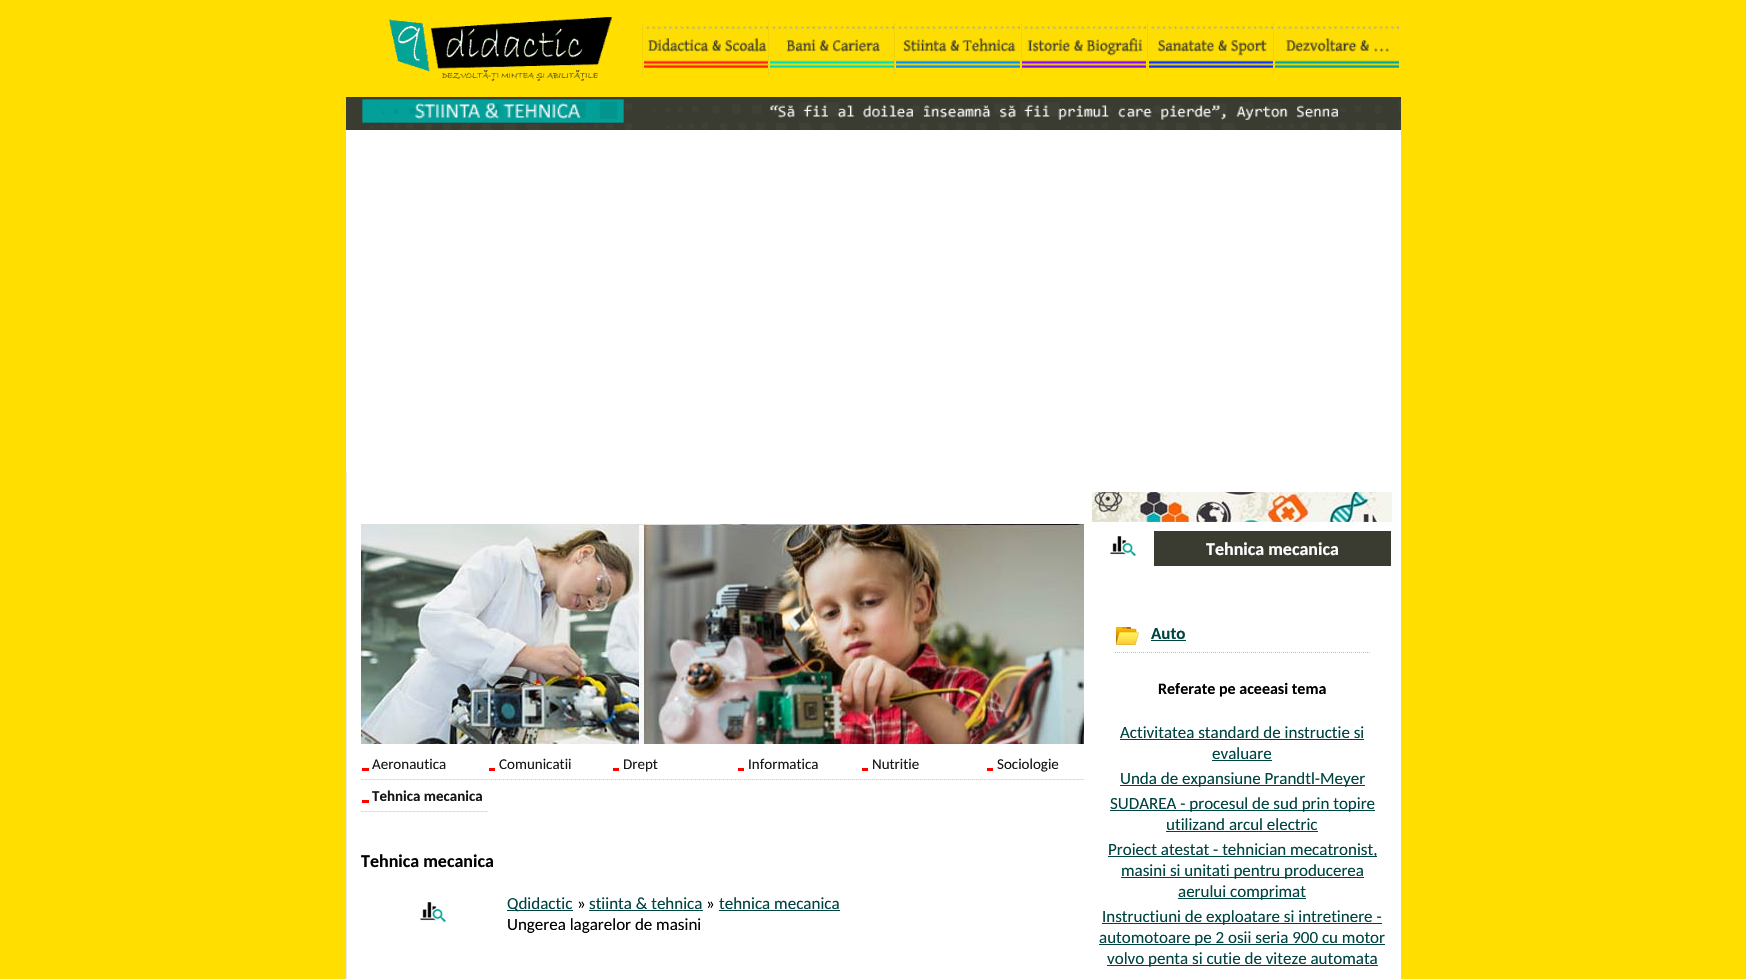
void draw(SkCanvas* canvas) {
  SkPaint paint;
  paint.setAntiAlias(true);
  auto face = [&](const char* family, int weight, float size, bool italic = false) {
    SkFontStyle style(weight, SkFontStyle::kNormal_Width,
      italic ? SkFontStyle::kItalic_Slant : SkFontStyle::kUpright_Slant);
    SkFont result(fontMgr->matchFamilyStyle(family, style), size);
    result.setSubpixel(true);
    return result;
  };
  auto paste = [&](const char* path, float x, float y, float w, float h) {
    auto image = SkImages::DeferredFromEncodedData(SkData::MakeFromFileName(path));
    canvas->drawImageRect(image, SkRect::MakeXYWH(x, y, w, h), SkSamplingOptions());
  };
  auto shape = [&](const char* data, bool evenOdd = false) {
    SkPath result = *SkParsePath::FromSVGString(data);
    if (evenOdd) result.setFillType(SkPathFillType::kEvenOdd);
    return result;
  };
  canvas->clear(0xffffde00);
  paint.setColor(0xffffffff);
  canvas->drawRect(SkRect::MakeXYWH(346, 130, 1055, 849), paint);
  paste("img/1.png", 389, 17, 223, 65);
  paint.setStroke(true);
  paint.setStrokeWidth(1);
  paint.setColor(0xffe9ca00);
  paint.setPathEffect(SkDashPathEffect::Make({{1, 1}}, 0));
  canvas->drawPath(shape("M642.5 22V75"), paint);
  paint.setPathEffect(nullptr);
  paste("img/2.png", 644, 26, 124, 42);
  paint.setPathEffect(SkDashPathEffect::Make({{1, 1}}, 0));
  canvas->drawPath(shape("M768.5 22V75"), paint);
  paint.setPathEffect(nullptr);
  paste("img/3.png", 770, 26, 124, 42);
  paint.setPathEffect(SkDashPathEffect::Make({{1, 1}}, 0));
  canvas->drawPath(shape("M894.5 22V75"), paint);
  paint.setPathEffect(nullptr);
  paste("img/4.png", 896, 26, 124, 42);
  paint.setPathEffect(SkDashPathEffect::Make({{1, 1}}, 0));
  canvas->drawPath(shape("M1021.5 22V75"), paint);
  paint.setPathEffect(nullptr);
  paste("img/5.png", 1022, 26, 124, 42);
  paint.setPathEffect(SkDashPathEffect::Make({{1, 1}}, 0));
  canvas->drawPath(shape("M1147.5 22V75"), paint);
  paint.setPathEffect(nullptr);
  paste("img/6.png", 1149, 26, 124, 42);
  paint.setPathEffect(SkDashPathEffect::Make({{1, 1}}, 0));
  canvas->drawPath(shape("M1273.5 22V75"), paint);
  paint.setPathEffect(nullptr);
  paste("img/7.png", 1275, 26, 124, 42);
  paint.setStroke(false);
  paint.setColor(0xff3a3c31);
  canvas->drawRect(SkRect::MakeXYWH(346, 97, 1055, 33), paint);
  paste("img/8.png", 371, 100, 261, 30);
  paste("img/9.png", 362, 99, 262, 25);
  paste("img/10.png", 666, 100, 735, 30);
  paste("img/11.png", 653, 100, 733, 23);
  paint.setColor(0xffeaeaea);
  canvas->drawRect(SkRect::MakeXYWH(346, 472, 1, 507), paint);
  paste("img/12.png", 361, 524, 723, 220);
  paste("img/13.png", 361, 779, 127, 1);
  paint.setColor(0xffff0000);
  canvas->drawRect(SkRect::MakeXYWH(362, 768, 7, 3), paint);
  paste("img/14.png", 488, 779, 124, 1);
  canvas->drawRect(SkRect::MakeXYWH(489, 768, 6, 3), paint);
  paste("img/15.png", 612, 779, 125, 1);
  canvas->drawRect(SkRect::MakeXYWH(613, 768, 6, 3), paint);
  paste("img/14.png", 737, 779, 124, 1);
  canvas->drawRect(SkRect::MakeXYWH(738, 768, 6, 3), paint);
  paste("img/15.png", 861, 779, 125, 1);
  canvas->drawRect(SkRect::MakeXYWH(862, 768, 6, 3), paint);
  paste("img/16.png", 986, 779, 98, 1);
  canvas->drawRect(SkRect::MakeXYWH(987, 768, 6, 3), paint);
  paste("img/13.png", 361, 811, 127, 1);
  canvas->drawRect(SkRect::MakeXYWH(362, 800, 7, 3), paint);
  paste("img/17.png", 420, 902, 26, 20);
  {
    const struct { float x, y, w, h; SkColor color; } items[] = {
      {507, 910, 66, 1, 0xff004542},
      {589, 910, 114, 1, 0xff004542},
      {719, 910, 121, 1, 0xff004542},
    };
    for (auto [x, y, w, h, color] : items) {
      paint.setColor(color);
      canvas->drawRect(SkRect::MakeXYWH(x, y, w, h), paint);
    }
  }
  paste("img/18.png", 1092, 492, 300, 30);
  paste("img/17.png", 1110, 536, 26, 20);
  paint.setColor(0xff3a3c31);
  canvas->drawRect(SkRect::MakeXYWH(1154, 531, 237, 35), paint);
  paste("img/19.png", 1115, 652, 255, 1);
  paste("img/20.png", 1116, 627, 23, 18);
  {
    const struct { float x, y, w, h; SkColor color; } items[] = {
      {1151, 640, 35, 1, 0xff004542},
      {1120, 739, 244, 1, 0xff004542},
      {1212, 760, 60, 1, 0xff004542},
      {1120, 785, 245, 1, 0xff004542},
      {1110, 810, 265, 1, 0xff004542},
      {1166, 831, 152, 1, 0xff004542},
      {1108, 856, 269, 1, 0xff004542},
      {1121, 877, 243, 1, 0xff004542},
      {1178, 898, 128, 1, 0xff004542},
      {1102, 923, 280, 1, 0xff004542},
      {1099, 944, 286, 1, 0xff004542},
      {1107, 965, 271, 1, 0xff004542},
    };
    for (auto [x, y, w, h, color] : items) {
      paint.setColor(color);
      canvas->drawRect(SkRect::MakeXYWH(x, y, w, h), paint);
    }
  }
  auto f0 = face("Carlito", 400, 15);
  paint.setColor(0xff171717);
  {
    const struct { const char* s; float x, y; } items[] = {
      {"Aeronautica", 372, 769},
      {"Comunicatii", 499, 769},
      {"Drept", 623, 769},
      {"Informatica", 748, 769},
      {"Nutritie", 872, 769},
      {"Sociologie", 997, 769},
    };
    for (auto [s, x, y] : items) {
      canvas->drawString(s, x, y, f0, paint);
    }
  }
  auto f1 = face("Carlito", 700, 15);
  canvas->drawString("Tehnica mecanica", 372, 801, f1, paint);
  auto f2 = face("Carlito", 700, 18);
  paint.setColor(0xff000000);
  canvas->drawString("Tehnica mecanica", 361, 867, f2, paint);
  auto f3 = face("Carlito", 400, 17);
  paint.setColor(0xff004542);
  canvas->drawString("Qdidactic", 507, 909, f3, paint);
  paint.setColor(0xff000000);
  canvas->drawString("»", 577, 909, f3, paint);
  paint.setColor(0xff004542);
  canvas->drawString("stiinta & tehnica", 589, 909, f3, paint);
  paint.setColor(0xff000000);
  canvas->drawString("»", 706, 909, f3, paint);
  paint.setColor(0xff004542);
  canvas->drawString("tehnica mecanica", 719, 909, f3, paint);
  paint.setColor(0xff000000);
  canvas->drawString("Ungerea lagarelor de masini", 507, 930, f3, paint);
  paint.setColor(0xffffffff);
  canvas->drawString("Tehnica mecanica", 1206, 555, f2, paint);
  auto f4 = face("Carlito", 700, 17);
  paint.setColor(0xff004542);
  canvas->drawString("Auto", 1151, 639, f4, paint);
  auto f5 = face("Carlito", 700, 16);
  paint.setColor(0xff000000);
  canvas->drawString("Referate pe aceeasi tema", 1158, 694, f5, paint);
  paint.setColor(0xff004542);
  {
    const struct { const char* s; float x, y; } items[] = {
      {"Activitatea standard de instructie si", 1120, 738},
      {"evaluare", 1212, 759},
      {"Unda de expansiune Prandtl-Meyer", 1120, 784},
      {"SUDAREA - procesul de sud prin topire", 1110, 809},
      {"utilizand arcul electric", 1166, 830},
      {"Proiect atestat - tehnician mecatronist,", 1108, 855},
      {"masini si unitati pentru producerea", 1121, 876},
      {"aerului comprimat", 1178, 897},
      {"Instructiuni de exploatare si intretinere -", 1102, 922},
      {"automotoare pe 2 osii seria 900 cu motor", 1099, 943},
      {"volvo penta si cutie de viteze automata", 1107, 964},
    };
    for (auto [s, x, y] : items) {
      canvas->drawString(s, x, y, f3, paint);
    }
  }
}
